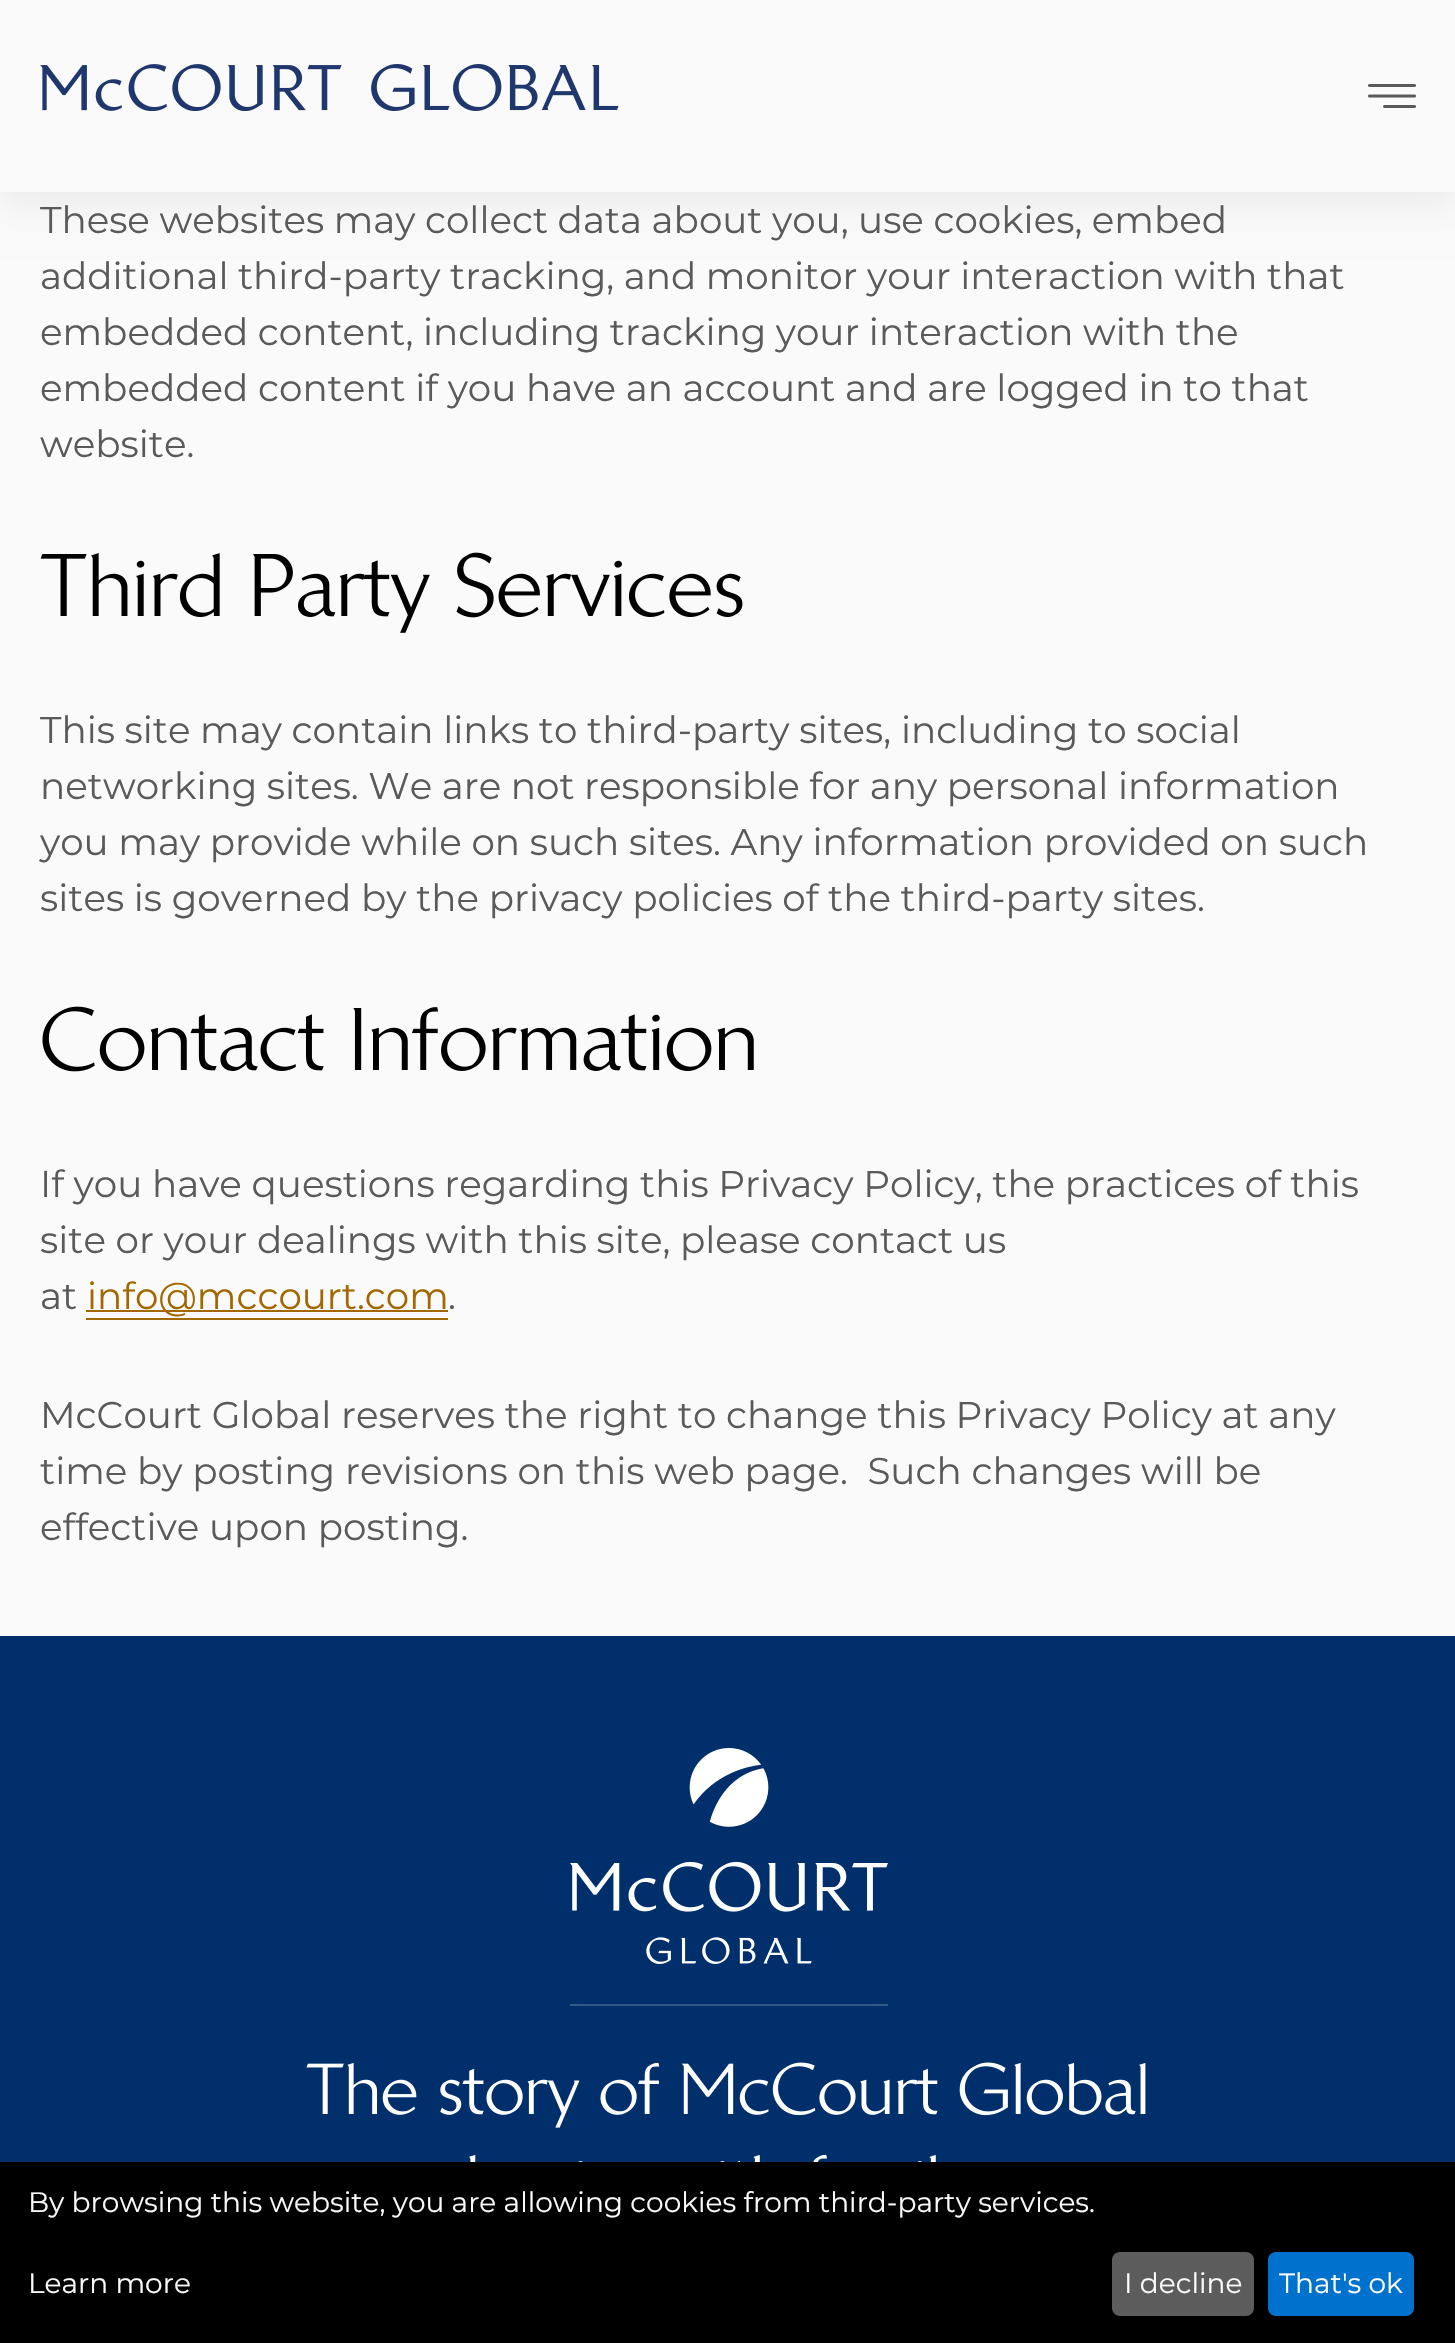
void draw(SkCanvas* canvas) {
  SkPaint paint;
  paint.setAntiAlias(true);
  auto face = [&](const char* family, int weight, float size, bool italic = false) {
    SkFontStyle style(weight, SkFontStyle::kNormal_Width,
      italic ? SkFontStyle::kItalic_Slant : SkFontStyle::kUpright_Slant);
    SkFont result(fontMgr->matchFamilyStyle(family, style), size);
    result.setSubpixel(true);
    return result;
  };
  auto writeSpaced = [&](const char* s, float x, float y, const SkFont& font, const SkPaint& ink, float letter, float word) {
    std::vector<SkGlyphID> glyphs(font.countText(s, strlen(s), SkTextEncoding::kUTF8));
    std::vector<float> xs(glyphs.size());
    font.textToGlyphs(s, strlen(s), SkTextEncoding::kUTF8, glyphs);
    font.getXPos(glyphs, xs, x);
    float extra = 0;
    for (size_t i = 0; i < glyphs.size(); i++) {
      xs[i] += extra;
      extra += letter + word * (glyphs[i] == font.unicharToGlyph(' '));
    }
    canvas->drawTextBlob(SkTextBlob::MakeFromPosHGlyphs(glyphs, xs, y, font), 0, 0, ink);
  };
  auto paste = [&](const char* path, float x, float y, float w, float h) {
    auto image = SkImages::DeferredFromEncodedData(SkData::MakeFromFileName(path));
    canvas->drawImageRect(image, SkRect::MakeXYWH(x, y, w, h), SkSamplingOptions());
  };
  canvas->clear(0xfffafafa);
  paint.setColor(0x12000000);
  paint.setMaskFilter(SkMaskFilter::MakeBlur(kNormal_SkBlurStyle, 20));
  canvas->drawRect(SkRect::MakeXYWH(0, 8, 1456, 192), paint);
  paint.setMaskFilter(nullptr);
  paint.setColor(0xfffafafa);
  canvas->drawRect(SkRect::MakeXYWH(0, 0, 1455, 192), paint);
  paste("img/1.png", 40, 64, 579, 47);
  paste("img/2.png", 1368, 84, 48, 24);
  paste("img/3.png", 40, 552, 703, 81);
  paste("img/4.png", 42, 1006, 712, 66);
  {
    const struct { float x, y, w, h; SkColor color; } items[] = {
      {86, 1318, 362, 2, 0xffa36700},
      {86, 1310, 362, 2, 0xffa36700},
      {0, 1636, 1455, 526, 0xff002f6c},
      {570, 2004, 318, 2, 0xff335989},
    };
    for (auto [x, y, w, h, color] : items) {
      paint.setColor(color);
      canvas->drawRect(SkRect::MakeXYWH(x, y, w, h), paint);
    }
  }
  paste("img/5.png", 570, 1748, 318, 216);
  paste("img/6.png", 306, 2062, 840, 66);
  paste("img/7.png", 469, 2154, 467, 8);
  paint.setColor(0xff000000);
  canvas->drawRect(SkRect::MakeXYWH(0, 2162, 1455, 181), paint);
  paint.setColor(0xff5c5c5c);
  canvas->drawRoundRect(SkRect::MakeXYWH(1112, 2252, 142, 64), 8, 8, paint);
  paint.setColor(0xff0072ce);
  canvas->drawRoundRect(SkRect::MakeXYWH(1268, 2252, 146, 64), 8, 8, paint);
  auto f0 = face("Montserrat", 400, 37.3f);
  paint.setColor(0xff5a5a5a);
  {
    const struct { const char* s; float x, y; } items[] = {
      {"These websites may collect data about you, use cookies, embed", 40, 233},
      {"additional third-party tracking, and monitor your interaction with that", 40, 289},
      {"embedded content, including tracking your interaction with the", 40, 345},
    };
    for (auto [s, x, y] : items) {
      writeSpaced(s, x, y, f0, paint, 0, -0.25f);
    }
  }
  writeSpaced("embedded content if you have an account and are logged in to that", 40, 401, f0, paint, 0, -0.1f);
  canvas->drawString("website.", 40, 457, f0, paint);
  writeSpaced("This site may contain links to third-party sites, including to social", 40, 743, f0, paint, 0, -0.1f);
  writeSpaced("networking sites. We are not responsible for any personal information", 40, 799, f0, paint, 0, -0.25f);
  {
    const struct { const char* s; float x, y; } items[] = {
      {"you may provide while on such sites. Any information provided on such", 40, 855},
      {"sites is governed by the privacy policies of the third-party sites.", 40, 911},
      {"If you have questions regarding this Privacy Policy, the practices of this", 40, 1197},
      {"site or your dealings with this site, please contact us", 40, 1253},
    };
    for (auto [s, x, y] : items) {
      writeSpaced(s, x, y, f0, paint, 0, -0.1f);
    }
  }
  canvas->drawString("at", 40, 1309, f0, paint);
  paint.setColor(0xffa36700);
  canvas->drawString("info@mccourt.com", 87, 1309, f0, paint);
  paint.setColor(0xff5a5a5a);
  canvas->drawString(".", 448, 1309, f0, paint);
  writeSpaced("McCourt Global reserves the right to change this Privacy Policy at any", 40, 1428, f0, paint, 0, -0.1f);
  canvas->drawString("time by posting revisions on this web page.  Such changes will be", 40, 1484, f0, paint);
  canvas->drawString("effective upon posting.", 40, 1540, f0, paint);
  auto f1 = face("Montserrat", 400, 28);
  paint.setColor(0xfffafafa);
  {
    const struct { const char* s; float x, y; } items[] = {
      {"By browsing this website, you are allowing cookies from third-party services.", 28, 2212},
      {"Learn more", 28, 2293},
      {"I decline", 1124, 2293},
      {"That's ok", 1279, 2293},
    };
    for (auto [s, x, y] : items) {
      canvas->drawString(s, x, y, f1, paint);
    }
  }
}
